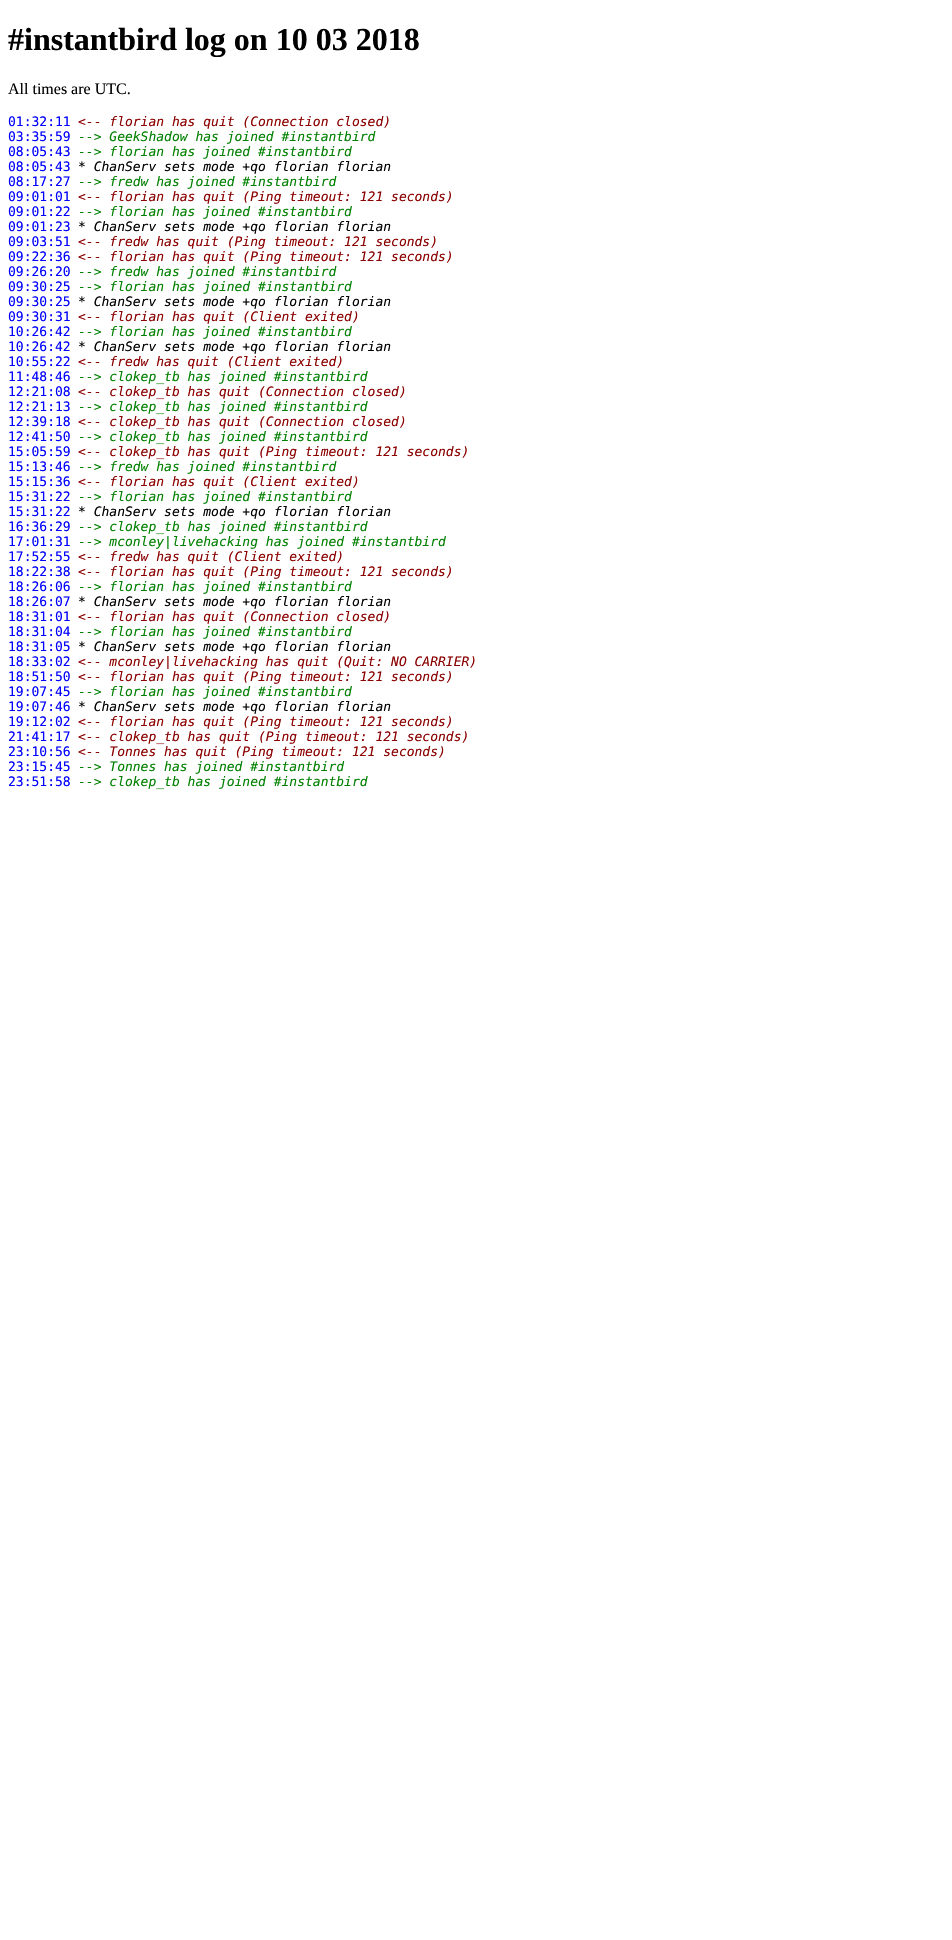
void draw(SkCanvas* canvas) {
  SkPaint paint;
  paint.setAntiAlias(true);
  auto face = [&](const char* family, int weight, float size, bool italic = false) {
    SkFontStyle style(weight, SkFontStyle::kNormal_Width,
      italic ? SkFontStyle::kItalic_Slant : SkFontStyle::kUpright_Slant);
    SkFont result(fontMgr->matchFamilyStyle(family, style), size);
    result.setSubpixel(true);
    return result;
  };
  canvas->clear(0xffffffff);
  auto f0 = face("Liberation Serif", 700, 32);
  paint.setColor(0xff000000);
  canvas->drawString("#instantbird log on 10 03 2018", 8, 50, f0, paint);
  auto f1 = face("Liberation Serif", 400, 16);
  canvas->drawString("All times are UTC.", 8, 94, f1, paint);
  auto f2 = face("DejaVu Sans Mono", 400, 13);
  paint.setColor(0xff0000ff);
  canvas->drawString("01:32:11", 8, 126, f2, paint);
  auto f3 = face("DejaVu Sans Mono", 400, 13, true);
  paint.setColor(0xff8b0000);
  canvas->drawString("<-- florian has quit (Connection closed)", 78, 126, f3, paint);
  paint.setColor(0xff0000ff);
  canvas->drawString("03:35:59", 8, 141, f2, paint);
  paint.setColor(0xff008000);
  canvas->drawString("--> GeekShadow has joined #instantbird", 78, 141, f3, paint);
  paint.setColor(0xff0000ff);
  canvas->drawString("08:05:43", 8, 156, f2, paint);
  paint.setColor(0xff008000);
  canvas->drawString("--> florian has joined #instantbird", 78, 156, f3, paint);
  paint.setColor(0xff0000ff);
  canvas->drawString("08:05:43", 8, 171, f2, paint);
  paint.setColor(0xff000000);
  canvas->drawString("* ChanServ sets mode +qo florian florian", 78, 171, f3, paint);
  paint.setColor(0xff0000ff);
  canvas->drawString("08:17:27", 8, 186, f2, paint);
  paint.setColor(0xff008000);
  canvas->drawString("--> fredw has joined #instantbird", 78, 186, f3, paint);
  paint.setColor(0xff0000ff);
  canvas->drawString("09:01:01", 8, 201, f2, paint);
  paint.setColor(0xff8b0000);
  canvas->drawString("<-- florian has quit (Ping timeout: 121 seconds)", 78, 201, f3, paint);
  paint.setColor(0xff0000ff);
  canvas->drawString("09:01:22", 8, 216, f2, paint);
  paint.setColor(0xff008000);
  canvas->drawString("--> florian has joined #instantbird", 78, 216, f3, paint);
  paint.setColor(0xff0000ff);
  canvas->drawString("09:01:23", 8, 231, f2, paint);
  paint.setColor(0xff000000);
  canvas->drawString("* ChanServ sets mode +qo florian florian", 78, 231, f3, paint);
  paint.setColor(0xff0000ff);
  canvas->drawString("09:03:51", 8, 246, f2, paint);
  paint.setColor(0xff8b0000);
  canvas->drawString("<-- fredw has quit (Ping timeout: 121 seconds)", 78, 246, f3, paint);
  paint.setColor(0xff0000ff);
  canvas->drawString("09:22:36", 8, 261, f2, paint);
  paint.setColor(0xff8b0000);
  canvas->drawString("<-- florian has quit (Ping timeout: 121 seconds)", 78, 261, f3, paint);
  paint.setColor(0xff0000ff);
  canvas->drawString("09:26:20", 8, 276, f2, paint);
  paint.setColor(0xff008000);
  canvas->drawString("--> fredw has joined #instantbird", 78, 276, f3, paint);
  paint.setColor(0xff0000ff);
  canvas->drawString("09:30:25", 8, 291, f2, paint);
  paint.setColor(0xff008000);
  canvas->drawString("--> florian has joined #instantbird", 78, 291, f3, paint);
  paint.setColor(0xff0000ff);
  canvas->drawString("09:30:25", 8, 306, f2, paint);
  paint.setColor(0xff000000);
  canvas->drawString("* ChanServ sets mode +qo florian florian", 78, 306, f3, paint);
  paint.setColor(0xff0000ff);
  canvas->drawString("09:30:31", 8, 321, f2, paint);
  paint.setColor(0xff8b0000);
  canvas->drawString("<-- florian has quit (Client exited)", 78, 321, f3, paint);
  paint.setColor(0xff0000ff);
  canvas->drawString("10:26:42", 8, 336, f2, paint);
  paint.setColor(0xff008000);
  canvas->drawString("--> florian has joined #instantbird", 78, 336, f3, paint);
  paint.setColor(0xff0000ff);
  canvas->drawString("10:26:42", 8, 351, f2, paint);
  paint.setColor(0xff000000);
  canvas->drawString("* ChanServ sets mode +qo florian florian", 78, 351, f3, paint);
  paint.setColor(0xff0000ff);
  canvas->drawString("10:55:22", 8, 366, f2, paint);
  paint.setColor(0xff8b0000);
  canvas->drawString("<-- fredw has quit (Client exited)", 78, 366, f3, paint);
  paint.setColor(0xff0000ff);
  canvas->drawString("11:48:46", 8, 381, f2, paint);
  paint.setColor(0xff008000);
  canvas->drawString("--> clokep_tb has joined #instantbird", 78, 381, f3, paint);
  paint.setColor(0xff0000ff);
  canvas->drawString("12:21:08", 8, 396, f2, paint);
  paint.setColor(0xff8b0000);
  canvas->drawString("<-- clokep_tb has quit (Connection closed)", 78, 396, f3, paint);
  paint.setColor(0xff0000ff);
  canvas->drawString("12:21:13", 8, 411, f2, paint);
  paint.setColor(0xff008000);
  canvas->drawString("--> clokep_tb has joined #instantbird", 78, 411, f3, paint);
  paint.setColor(0xff0000ff);
  canvas->drawString("12:39:18", 8, 426, f2, paint);
  paint.setColor(0xff8b0000);
  canvas->drawString("<-- clokep_tb has quit (Connection closed)", 78, 426, f3, paint);
  paint.setColor(0xff0000ff);
  canvas->drawString("12:41:50", 8, 441, f2, paint);
  paint.setColor(0xff008000);
  canvas->drawString("--> clokep_tb has joined #instantbird", 78, 441, f3, paint);
  paint.setColor(0xff0000ff);
  canvas->drawString("15:05:59", 8, 456, f2, paint);
  paint.setColor(0xff8b0000);
  canvas->drawString("<-- clokep_tb has quit (Ping timeout: 121 seconds)", 78, 456, f3, paint);
  paint.setColor(0xff0000ff);
  canvas->drawString("15:13:46", 8, 471, f2, paint);
  paint.setColor(0xff008000);
  canvas->drawString("--> fredw has joined #instantbird", 78, 471, f3, paint);
  paint.setColor(0xff0000ff);
  canvas->drawString("15:15:36", 8, 486, f2, paint);
  paint.setColor(0xff8b0000);
  canvas->drawString("<-- florian has quit (Client exited)", 78, 486, f3, paint);
  paint.setColor(0xff0000ff);
  canvas->drawString("15:31:22", 8, 501, f2, paint);
  paint.setColor(0xff008000);
  canvas->drawString("--> florian has joined #instantbird", 78, 501, f3, paint);
  paint.setColor(0xff0000ff);
  canvas->drawString("15:31:22", 8, 516, f2, paint);
  paint.setColor(0xff000000);
  canvas->drawString("* ChanServ sets mode +qo florian florian", 78, 516, f3, paint);
  paint.setColor(0xff0000ff);
  canvas->drawString("16:36:29", 8, 531, f2, paint);
  paint.setColor(0xff008000);
  canvas->drawString("--> clokep_tb has joined #instantbird", 78, 531, f3, paint);
  paint.setColor(0xff0000ff);
  canvas->drawString("17:01:31", 8, 546, f2, paint);
  paint.setColor(0xff008000);
  canvas->drawString("--> mconley|livehacking has joined #instantbird", 78, 546, f3, paint);
  paint.setColor(0xff0000ff);
  canvas->drawString("17:52:55", 8, 561, f2, paint);
  paint.setColor(0xff8b0000);
  canvas->drawString("<-- fredw has quit (Client exited)", 78, 561, f3, paint);
  paint.setColor(0xff0000ff);
  canvas->drawString("18:22:38", 8, 576, f2, paint);
  paint.setColor(0xff8b0000);
  canvas->drawString("<-- florian has quit (Ping timeout: 121 seconds)", 78, 576, f3, paint);
  paint.setColor(0xff0000ff);
  canvas->drawString("18:26:06", 8, 591, f2, paint);
  paint.setColor(0xff008000);
  canvas->drawString("--> florian has joined #instantbird", 78, 591, f3, paint);
  paint.setColor(0xff0000ff);
  canvas->drawString("18:26:07", 8, 606, f2, paint);
  paint.setColor(0xff000000);
  canvas->drawString("* ChanServ sets mode +qo florian florian", 78, 606, f3, paint);
  paint.setColor(0xff0000ff);
  canvas->drawString("18:31:01", 8, 621, f2, paint);
  paint.setColor(0xff8b0000);
  canvas->drawString("<-- florian has quit (Connection closed)", 78, 621, f3, paint);
  paint.setColor(0xff0000ff);
  canvas->drawString("18:31:04", 8, 636, f2, paint);
  paint.setColor(0xff008000);
  canvas->drawString("--> florian has joined #instantbird", 78, 636, f3, paint);
  paint.setColor(0xff0000ff);
  canvas->drawString("18:31:05", 8, 651, f2, paint);
  paint.setColor(0xff000000);
  canvas->drawString("* ChanServ sets mode +qo florian florian", 78, 651, f3, paint);
  paint.setColor(0xff0000ff);
  canvas->drawString("18:33:02", 8, 666, f2, paint);
  paint.setColor(0xff8b0000);
  canvas->drawString("<-- mconley|livehacking has quit (Quit: NO CARRIER)", 78, 666, f3, paint);
  paint.setColor(0xff0000ff);
  canvas->drawString("18:51:50", 8, 681, f2, paint);
  paint.setColor(0xff8b0000);
  canvas->drawString("<-- florian has quit (Ping timeout: 121 seconds)", 78, 681, f3, paint);
  paint.setColor(0xff0000ff);
  canvas->drawString("19:07:45", 8, 696, f2, paint);
  paint.setColor(0xff008000);
  canvas->drawString("--> florian has joined #instantbird", 78, 696, f3, paint);
  paint.setColor(0xff0000ff);
  canvas->drawString("19:07:46", 8, 711, f2, paint);
  paint.setColor(0xff000000);
  canvas->drawString("* ChanServ sets mode +qo florian florian", 78, 711, f3, paint);
  paint.setColor(0xff0000ff);
  canvas->drawString("19:12:02", 8, 726, f2, paint);
  paint.setColor(0xff8b0000);
  canvas->drawString("<-- florian has quit (Ping timeout: 121 seconds)", 78, 726, f3, paint);
  paint.setColor(0xff0000ff);
  canvas->drawString("21:41:17", 8, 741, f2, paint);
  paint.setColor(0xff8b0000);
  canvas->drawString("<-- clokep_tb has quit (Ping timeout: 121 seconds)", 78, 741, f3, paint);
  paint.setColor(0xff0000ff);
  canvas->drawString("23:10:56", 8, 756, f2, paint);
  paint.setColor(0xff8b0000);
  canvas->drawString("<-- Tonnes has quit (Ping timeout: 121 seconds)", 78, 756, f3, paint);
  paint.setColor(0xff0000ff);
  canvas->drawString("23:15:45", 8, 771, f2, paint);
  paint.setColor(0xff008000);
  canvas->drawString("--> Tonnes has joined #instantbird", 78, 771, f3, paint);
  paint.setColor(0xff0000ff);
  canvas->drawString("23:51:58", 8, 786, f2, paint);
  paint.setColor(0xff008000);
  canvas->drawString("--> clokep_tb has joined #instantbird", 78, 786, f3, paint);
}
